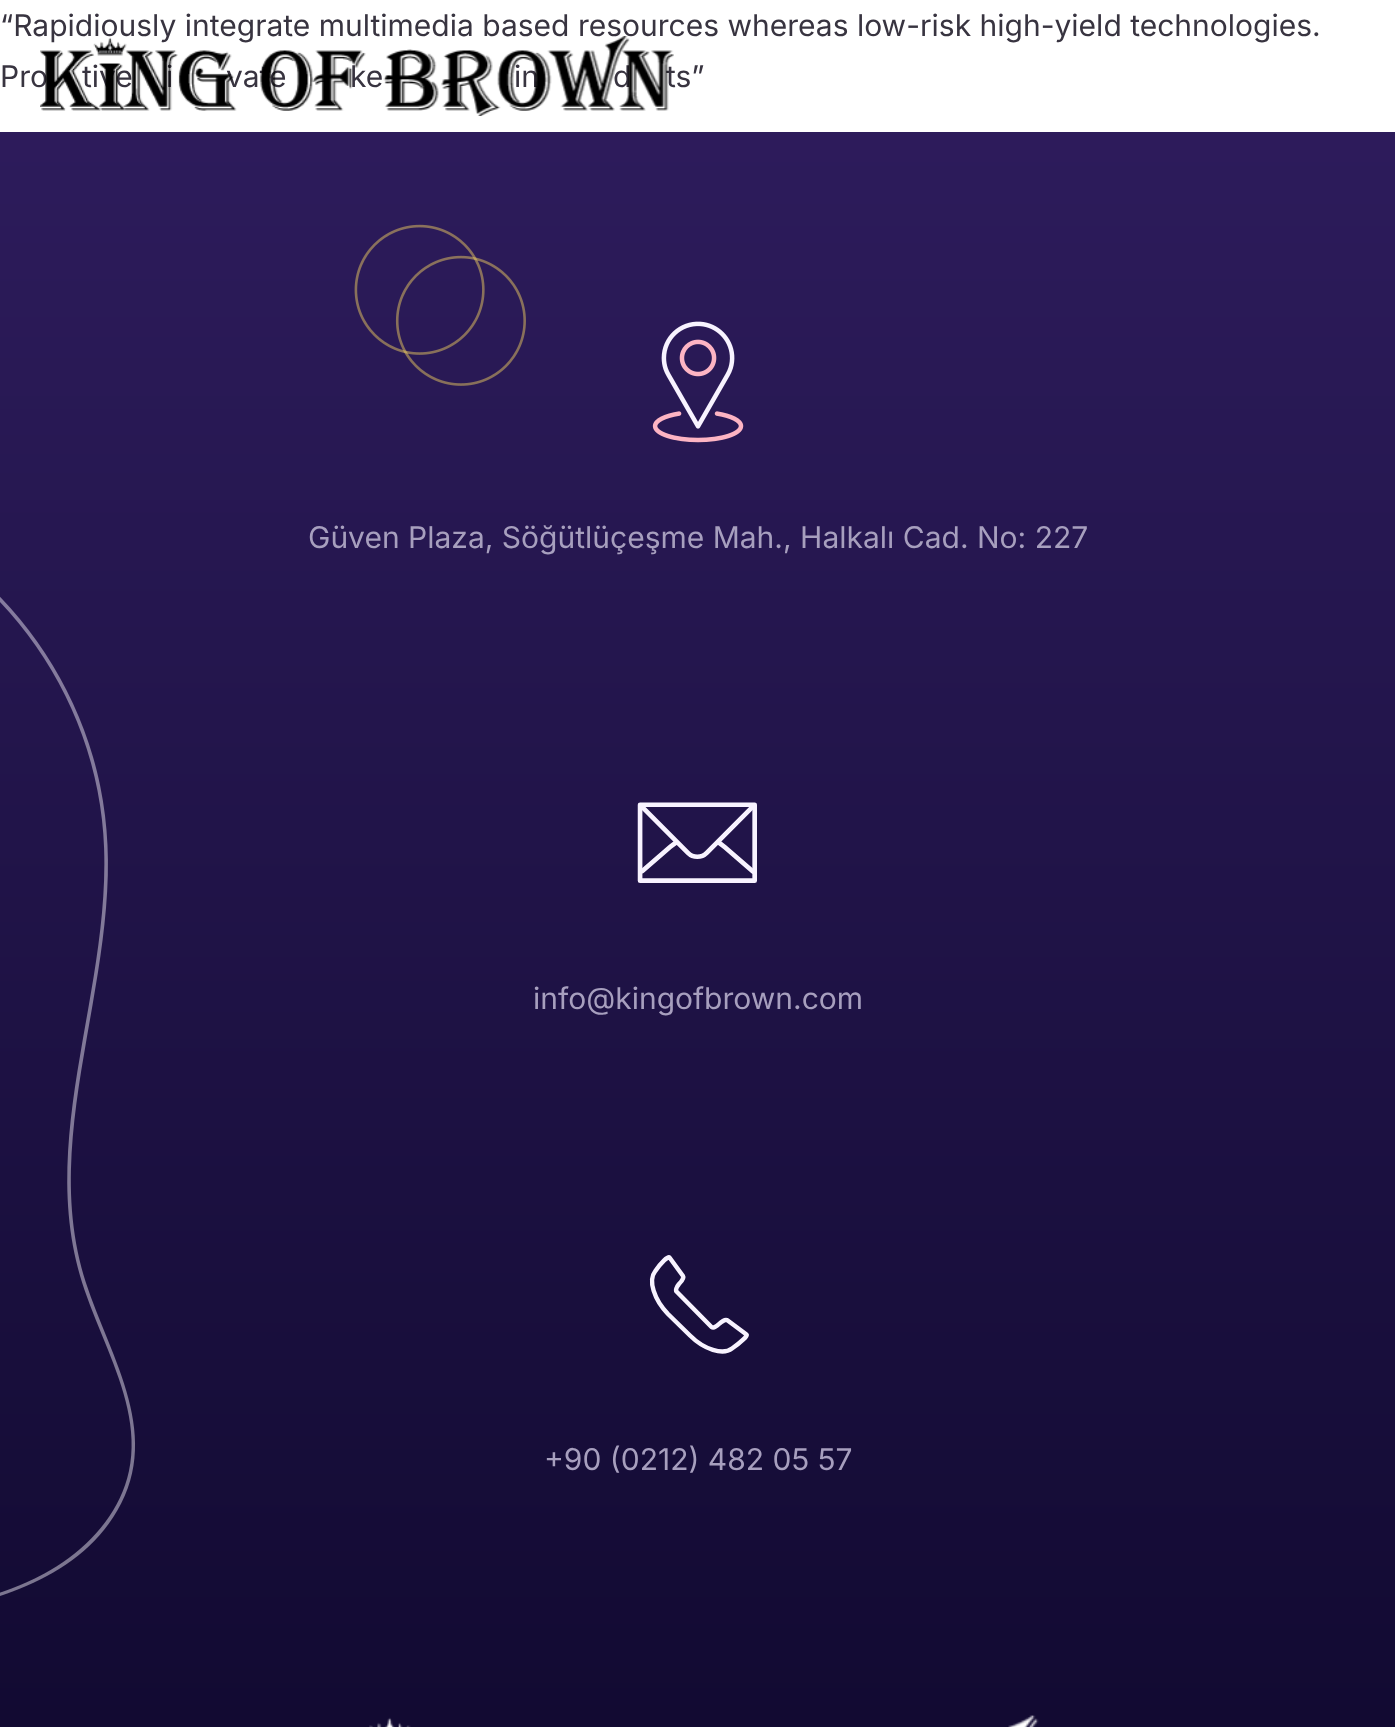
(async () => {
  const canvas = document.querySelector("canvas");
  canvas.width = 1395;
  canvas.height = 1727;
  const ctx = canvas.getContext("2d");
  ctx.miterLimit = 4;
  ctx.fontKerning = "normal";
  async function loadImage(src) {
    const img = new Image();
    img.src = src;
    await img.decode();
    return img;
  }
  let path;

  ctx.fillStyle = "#ffffff";
  ctx.fillRect(0, 0, 1395, 1727);
  ctx.drawImage(await loadImage("img/2.png"), 0, 132, 1395, 1595);
  ctx.drawImage(await loadImage("img/3.png"), 652, 321, 92, 122);
  ctx.drawImage(await loadImage("img/4.png"), 637, 802, 120, 81);
  path = new Path2D("M669.5 1257.5C668 1256 661.5 1262 655 1271.5C648 1280.5 654 1299.5 668 1314L690 1335.5C704 1349.5 723 1355.5 732 1348.5C741.5 1342 748 1335.5 746.5 1334.5L727 1320C725.5 1319.5 722 1321 719 1324C716 1327 713 1328 711.5 1327L677 1292C675 1290.5 676.5 1287 679 1284C682 1281 684 1277.5 683 1276Z");
  ctx.strokeStyle = "#f8f3ff";
  ctx.lineWidth = 4.4;
  ctx.lineCap = "round";
  ctx.lineJoin = "round";
  ctx.stroke(path);
  ctx.drawImage(await loadImage("img/5.png"), 369, 1715, 670, 12);
  ctx.font = "30px Inter";
  ctx.fillStyle = "#383440";
  for (const [text, x, y] of [
    ["“Rapidiously integrate multimedia based resources whereas low-risk high-yield technologies.", 0, 36],
    ["Pro", 0, 87],
    ["tive", 82, 87],
    ["i", 166, 87],
    ["vate", 226, 87],
    ["ke", 350, 87],
    ["in", 514, 87],
    ["d", 613, 87],
    ["ts”", 666, 87],
  ]) {
    ctx.fillText(text, x, y);
  }
  ctx.drawImage(await loadImage("img/1.png"), 40, 36, 634, 80);
  ctx.fillStyle = "#a79fbe";
  for (const [text, x, y] of [
    ["Güven Plaza, Söğütlüçeşme Mah., Halkalı Cad. No: 227", 308, 548],
    ["info@kingofbrown.com", 533, 1009],
    ["+90 (0212) 482 05 57", 544, 1470],
  ]) {
    ctx.fillText(text, x, y);
  }
})();
